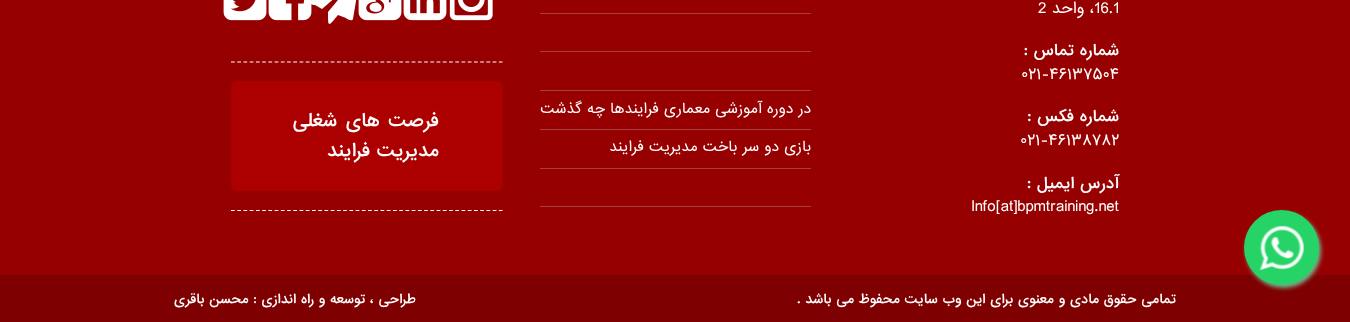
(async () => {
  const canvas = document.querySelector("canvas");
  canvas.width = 1350;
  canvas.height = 322;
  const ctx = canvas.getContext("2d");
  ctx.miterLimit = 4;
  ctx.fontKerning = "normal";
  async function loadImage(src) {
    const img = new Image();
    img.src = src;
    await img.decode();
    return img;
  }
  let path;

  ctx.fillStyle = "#970000";
  ctx.fillRect(0, 0, 1350, 322);
  ctx.fillStyle = "#7e0000";
  ctx.fillRect(0, 275, 1350, 47);
  ctx.fillStyle = "#77b18d";
  ctx.filter = "blur(2px)";
  ctx.beginPath();
  ctx.roundRect(1246, 213, 75, 75, 37.5);
  ctx.fill();
  ctx.filter = "none";
  ctx.fillStyle = "#25d366";
  ctx.beginPath();
  ctx.arc(1281.5, 247.5, 37.5, 0, Math.PI * 2);
  ctx.fill();
  ctx.drawImage(await loadImage("img/1.png"), 1259, 226, 45, 44);
  for (const [x, y, w, h, color] of [
    [540, 13, 271, 1, "#a64040"],
    [540, 51, 271, 1, "#a64040"],
    [540, 90, 271, 1, "#a64040"],
    [540, 129, 271, 1, "#a64040"],
    [540, 168, 271, 1, "#a64040"],
    [540, 206, 271, 1, "#a64040"],
  ]) {
    ctx.fillStyle = color;
    ctx.fillRect(x, y, w, h);
  }
  ctx.drawImage(await loadImage("img/2.png"), 449, 0, 44, 21);
  ctx.drawImage(await loadImage("img/3.png"), 403, 0, 44, 21);
  ctx.drawImage(await loadImage("img/4.png"), 358, 0, 44, 21);
  ctx.fillStyle = "#ffffff";
  path = new Path2D("M359-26H357L310 1C308 4 314 5 315 5L322 9L352-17L328 12C328 28 328 27 338 15L346 18C347 19 352 22 353 19L359-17C359-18 362-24 359-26Z");
  ctx.fill(path);
  ctx.drawImage(await loadImage("img/5.png"), 268, 0, 44, 21);
  ctx.drawImage(await loadImage("img/6.png"), 223, 0, 44, 21);
  path = new Path2D("M231 62H502.5");
  ctx.strokeStyle = "#ffffff";
  ctx.lineWidth = 1.2;
  ctx.setLineDash([3.75, 2.48]);
  ctx.stroke(path);
  path = new Path2D("M231 210.5H502.5");
  ctx.stroke(path);
  ctx.fillStyle = "#ac0000";
  ctx.beginPath();
  ctx.roundRect(231, 81, 272, 110, 6);
  ctx.fill();
  ctx.font = "15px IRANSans";
  ctx.fillStyle = "#ffffff";
  ctx.fillText("16.1", 1094, 13);
  ctx.direction = "rtl";
  ctx.fillText("، واحد", 1094, 13);
  ctx.direction = "ltr";
  ctx.fillText("2", 1038, 13);
  ctx.direction = "rtl";
  ctx.font = "500 15px IRANSans";
  ctx.fillText("شماره تماس :", 1119, 55);
  ctx.direction = "ltr";
  ctx.font = "15px IRANSans";
  ctx.fillText("۰۲۱-۴۶۱۳۷۵۰۴", 1021, 79);
  ctx.direction = "rtl";
  ctx.font = "500 15px IRANSans";
  ctx.fillText("شماره فکس :", 1119, 121);
  ctx.direction = "ltr";
  ctx.font = "15px IRANSans";
  ctx.fillText("۰۲۱-۴۶۱۳۸۷۸۲", 1020, 145);
  ctx.direction = "rtl";
  ctx.font = "500 15px IRANSans";
  ctx.fillText("آدرس ایمیل :", 1119, 188);
  ctx.direction = "ltr";
  ctx.font = "15px IRANSans";
  ctx.fillText("Info[at]bpmtraining.net", 971, 211);
  ctx.save();
  ctx.beginPath();
  ctx.rect(540, 98, 271, 31);
  ctx.clip();
  ctx.direction = "rtl";
  ctx.font = "13.75px IRANSans";
  ctx.fillText("در دوره آموزشی معماری فرایندها چه گذشت؟", 811, 113);
  ctx.restore();
  ctx.direction = "rtl";
  ctx.font = "13.75px IRANSans";
  ctx.fillText("بازی دو سر باخت مدیریت فرایند", 811, 151);
  ctx.wordSpacing = "2px";
  ctx.font = "500 17.5px IRANSans";
  ctx.fillText("فرصت های شغلی", 439, 126);
  ctx.wordSpacing = "0px";
  ctx.fillText("مدیریت فرایند", 439, 156);
  ctx.font = "500 12.5px IRANSans";
  ctx.fillText("تمامی حقوق مادی و معنوی برای این وب سایت محفوظ می باشد .", 1176, 303);
  ctx.fillText("طراحی ، توسعه و راه اندازی : محسن باقری", 416, 303);
})();
